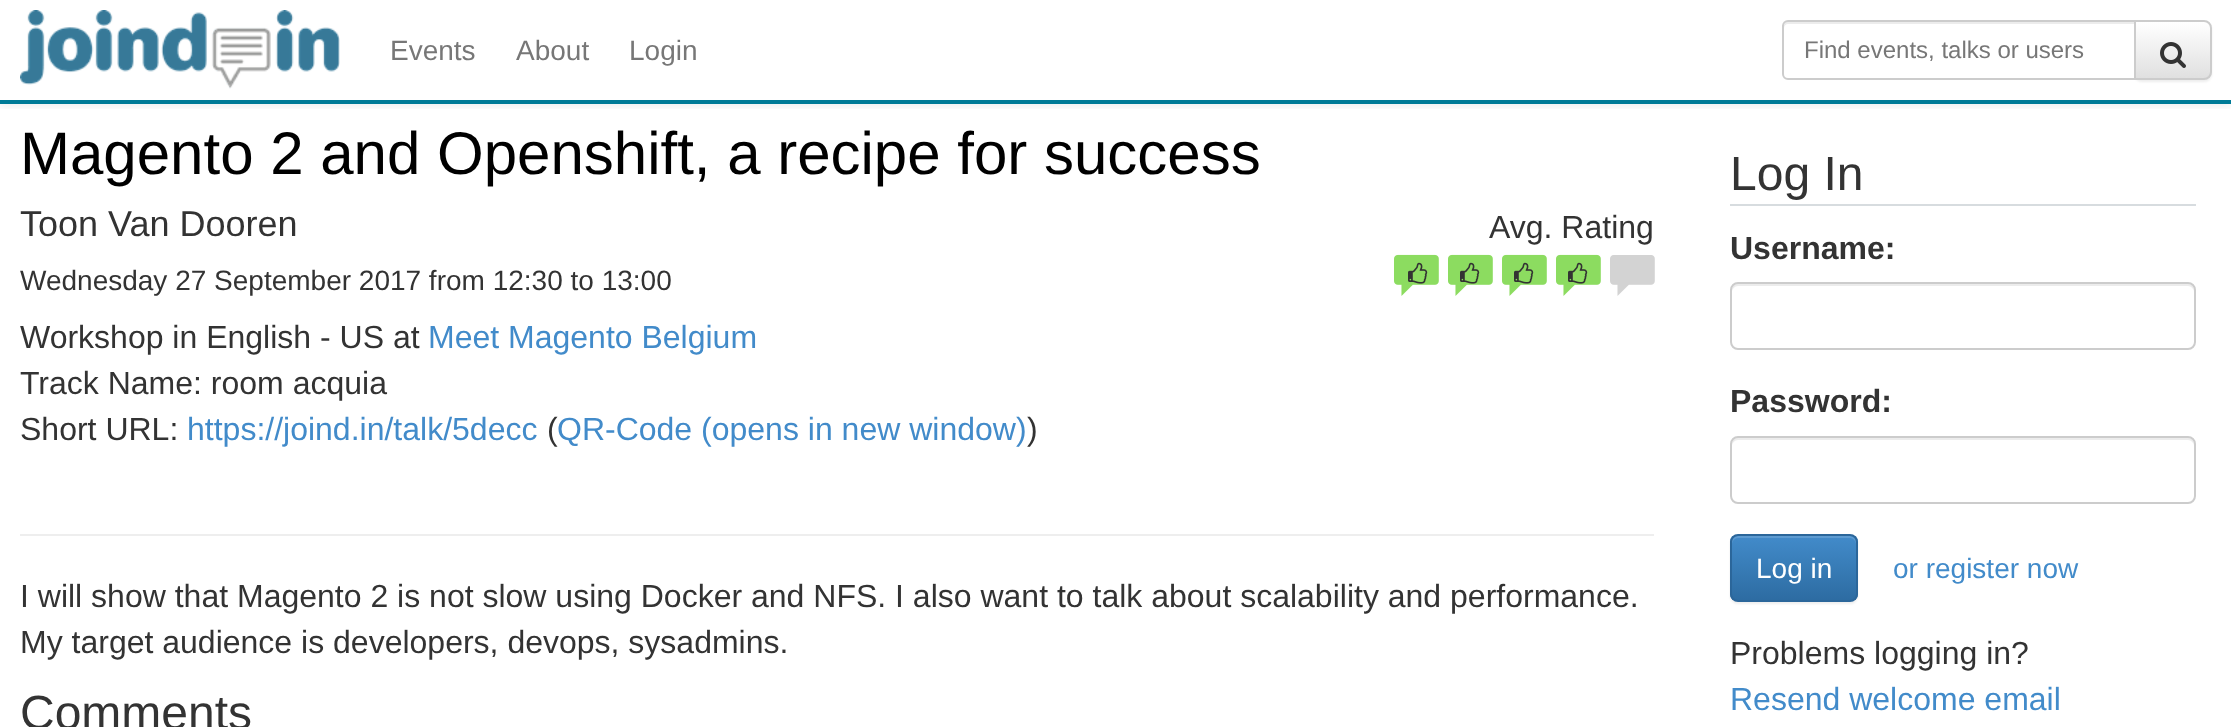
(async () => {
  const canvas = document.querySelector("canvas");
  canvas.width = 2231;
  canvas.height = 727;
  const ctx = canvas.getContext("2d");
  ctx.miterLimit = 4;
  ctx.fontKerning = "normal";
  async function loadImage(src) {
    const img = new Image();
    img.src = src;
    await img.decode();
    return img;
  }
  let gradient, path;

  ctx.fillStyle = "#ffffff";
  ctx.fillRect(0, 0, 2231, 727);
  ctx.save();
  ctx.beginPath();
  ctx.rect(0, 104, 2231, 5);
  ctx.clip();
  ctx.fillStyle = "rgba(0, 0, 0, 0.07)";
  ctx.filter = "blur(5px)";
  ctx.beginPath();
  ctx.rect(0, 2, 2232, 104);
  ctx.fill();
  ctx.filter = "none";
  ctx.restore();
  ctx.fillStyle = "#007b97";
  ctx.fillRect(0, 100, 2231, 4);
  ctx.drawImage(await loadImage("img/1.png"), 20, 10, 320, 79);
  ctx.fillStyle = "rgba(0, 0, 0, 0.07)";
  ctx.filter = "blur(1px)";
  ctx.beginPath();
  ctx.roundRect(2134, 22, 78, 60, 8);
  ctx.fill();
  ctx.filter = "none";
  ctx.save();
  ctx.beginPath();
  ctx.roundRect(2134, 20, 78, 60, [0, 8, 8, 0]);
  ctx.clip();
  gradient = ctx.createLinearGradient(2173, 22, 2173, 78);
  gradient.addColorStop(0, "#ffffff");
  gradient.addColorStop(1, "#e0e0e0");
  ctx.fillStyle = gradient;
  ctx.fillRect(2136, 22, 76, 56);
  ctx.restore();
  ctx.beginPath();
  ctx.roundRect(2135, 21, 76, 58, [0, 7, 7, 0]);
  ctx.strokeStyle = "#cccccc";
  ctx.lineWidth = 2;
  ctx.stroke();
  ctx.fillStyle = "#ffffff";
  ctx.beginPath();
  ctx.roundRect(1782, 20, 354, 60, [6, 0, 0, 6]);
  ctx.fill();
  ctx.fillStyle = "#ececec";
  path = new Path2D("M1788 24H2134V22H1786C1784 23 1784 26 1784 28C1784 26 1786 24 1788 24Z");
  ctx.fill(path);
  ctx.beginPath();
  ctx.roundRect(1783, 21, 352, 58, [5, 0, 0, 5]);
  ctx.stroke();
  ctx.drawImage(await loadImage("img/2.png"), 2160, 42, 26, 26);
  ctx.fillStyle = "#eeeeee";
  ctx.fillRect(20, 534, 1634, 2);
  ctx.drawImage(await loadImage("img/3.png"), 1394, 254, 45, 42);
  ctx.drawImage(await loadImage("img/4.png"), 1408, 262, 20, 22);
  ctx.drawImage(await loadImage("img/3.png"), 1448, 254, 45, 42);
  ctx.drawImage(await loadImage("img/4.png"), 1460, 262, 20, 22);
  ctx.drawImage(await loadImage("img/3.png"), 1502, 254, 45, 42);
  ctx.drawImage(await loadImage("img/4.png"), 1514, 262, 20, 22);
  ctx.drawImage(await loadImage("img/3.png"), 1556, 254, 45, 42);
  ctx.drawImage(await loadImage("img/4.png"), 1568, 262, 20, 22);
  ctx.drawImage(await loadImage("img/5.png"), 1610, 255, 45, 41);
  ctx.fillStyle = "#d7dcdf";
  ctx.fillRect(1730, 204, 466, 2);
  ctx.fillStyle = "#ececec";
  path = new Path2D("M1738 286H2188C2191 286 2194 289 2194 292C2194 288 2193 284 2188 284H1738C1733 284 1732 288 1732 292C1732 289 1735 286 1738 286Z");
  ctx.fill(path);
  ctx.beginPath();
  ctx.roundRect(1731, 283, 464, 66, 7);
  ctx.stroke();
  path = new Path2D("M1738 440H2188C2191 440 2194 443 2194 446C2194 442 2193 438 2188 438H1738C1733 438 1732 442 1732 446C1732 443 1735 440 1738 440Z");
  ctx.fill(path);
  ctx.beginPath();
  ctx.roundRect(1731, 437, 464, 66, 7);
  ctx.stroke();
  ctx.fillStyle = "rgba(0, 0, 0, 0.07)";
  ctx.filter = "blur(1px)";
  ctx.beginPath();
  ctx.roundRect(1730, 536, 128, 68, 8);
  ctx.fill();
  ctx.filter = "none";
  ctx.save();
  ctx.beginPath();
  ctx.roundRect(1730, 534, 128, 68, 8);
  ctx.clip();
  gradient = ctx.createLinearGradient(1794, 536, 1794, 600);
  gradient.addColorStop(0, "#428bca");
  gradient.addColorStop(1, "#2d6ca2");
  ctx.fillStyle = gradient;
  ctx.fillRect(1730, 536, 128, 64);
  ctx.restore();
  ctx.fillStyle = "rgba(255, 255, 255, 0.15)";
  path = new Path2D("M1738 538H1850C1853 538 1856 541 1856 544V542C1856 539 1853 536 1850 536H1738C1735 536 1732 539 1732 542V544C1732 541 1735 538 1738 538Z");
  ctx.fill(path);
  ctx.beginPath();
  ctx.roundRect(1731, 535, 126, 66, 7);
  ctx.strokeStyle = "#2b669a";
  ctx.stroke();
  ctx.font = "28px Liberation Sans";
  ctx.fillStyle = "#777777";
  for (const [text, x, y] of [
    ["Events", 390, 60],
    ["About", 516, 60],
    ["Login", 629, 60],
  ]) {
    ctx.fillText(text, x, y);
  }
  ctx.font = "24px Liberation Sans";
  ctx.fillText("Find events, talks or users", 1804, 58);
  ctx.font = "60px Liberation Sans";
  ctx.fillStyle = "#000000";
  ctx.fillText("Magento 2 and Openshift, a recipe for success", 20, 174);
  ctx.font = "36px Liberation Sans";
  ctx.fillStyle = "#333333";
  ctx.fillText("Toon Van Dooren", 20, 236);
  ctx.font = "28px Liberation Sans";
  ctx.fillText("Wednesday 27 September 2017 from 12:30 to 13:00", 20, 290);
  ctx.font = "32px Liberation Sans";
  ctx.fillText("Workshop in English - US at", 20, 348);
  ctx.fillStyle = "#428bca";
  ctx.fillText("Meet Magento Belgium", 428, 348);
  ctx.fillStyle = "#333333";
  ctx.fillText("Track Name: room acquia", 20, 394);
  ctx.fillText("Short URL:", 20, 440);
  ctx.fillStyle = "#428bca";
  ctx.fillText("https://joind.in/talk/5decc", 187, 440);
  ctx.fillStyle = "#333333";
  ctx.fillText("(", 547, 440);
  ctx.fillStyle = "#428bca";
  ctx.fillText("QR-Code (opens in new window)", 557, 440);
  ctx.fillStyle = "#333333";
  for (const [text, x, y] of [
    [")", 1027, 440],
    ["Avg. Rating", 1489, 238],
    ["I will show that Magento 2 is not slow using Docker and NFS. I also want to talk about scalability and performance.", 20, 607],
    ["My target audience is developers, devops, sysadmins.", 20, 653],
  ]) {
    ctx.fillText(text, x, y);
  }
  ctx.font = "48px Liberation Sans";
  ctx.fillText("Comments", 20, 729);
  ctx.fillText("Log In", 1730, 190);
  ctx.font = "bold 32px Liberation Sans";
  ctx.fillText("Username:", 1730, 259);
  ctx.fillText("Password:", 1730, 412);
  ctx.font = "28px Liberation Sans";
  ctx.fillStyle = "#ffffff";
  ctx.fillText("Log in", 1756, 578);
  ctx.fillStyle = "#428bca";
  ctx.fillText("or register now", 1893, 578);
  ctx.font = "32px Liberation Sans";
  ctx.fillStyle = "#333333";
  ctx.fillText("Problems logging in?", 1730, 664);
  ctx.fillStyle = "#428bca";
  ctx.fillText("Resend welcome email", 1730, 710);
})();
